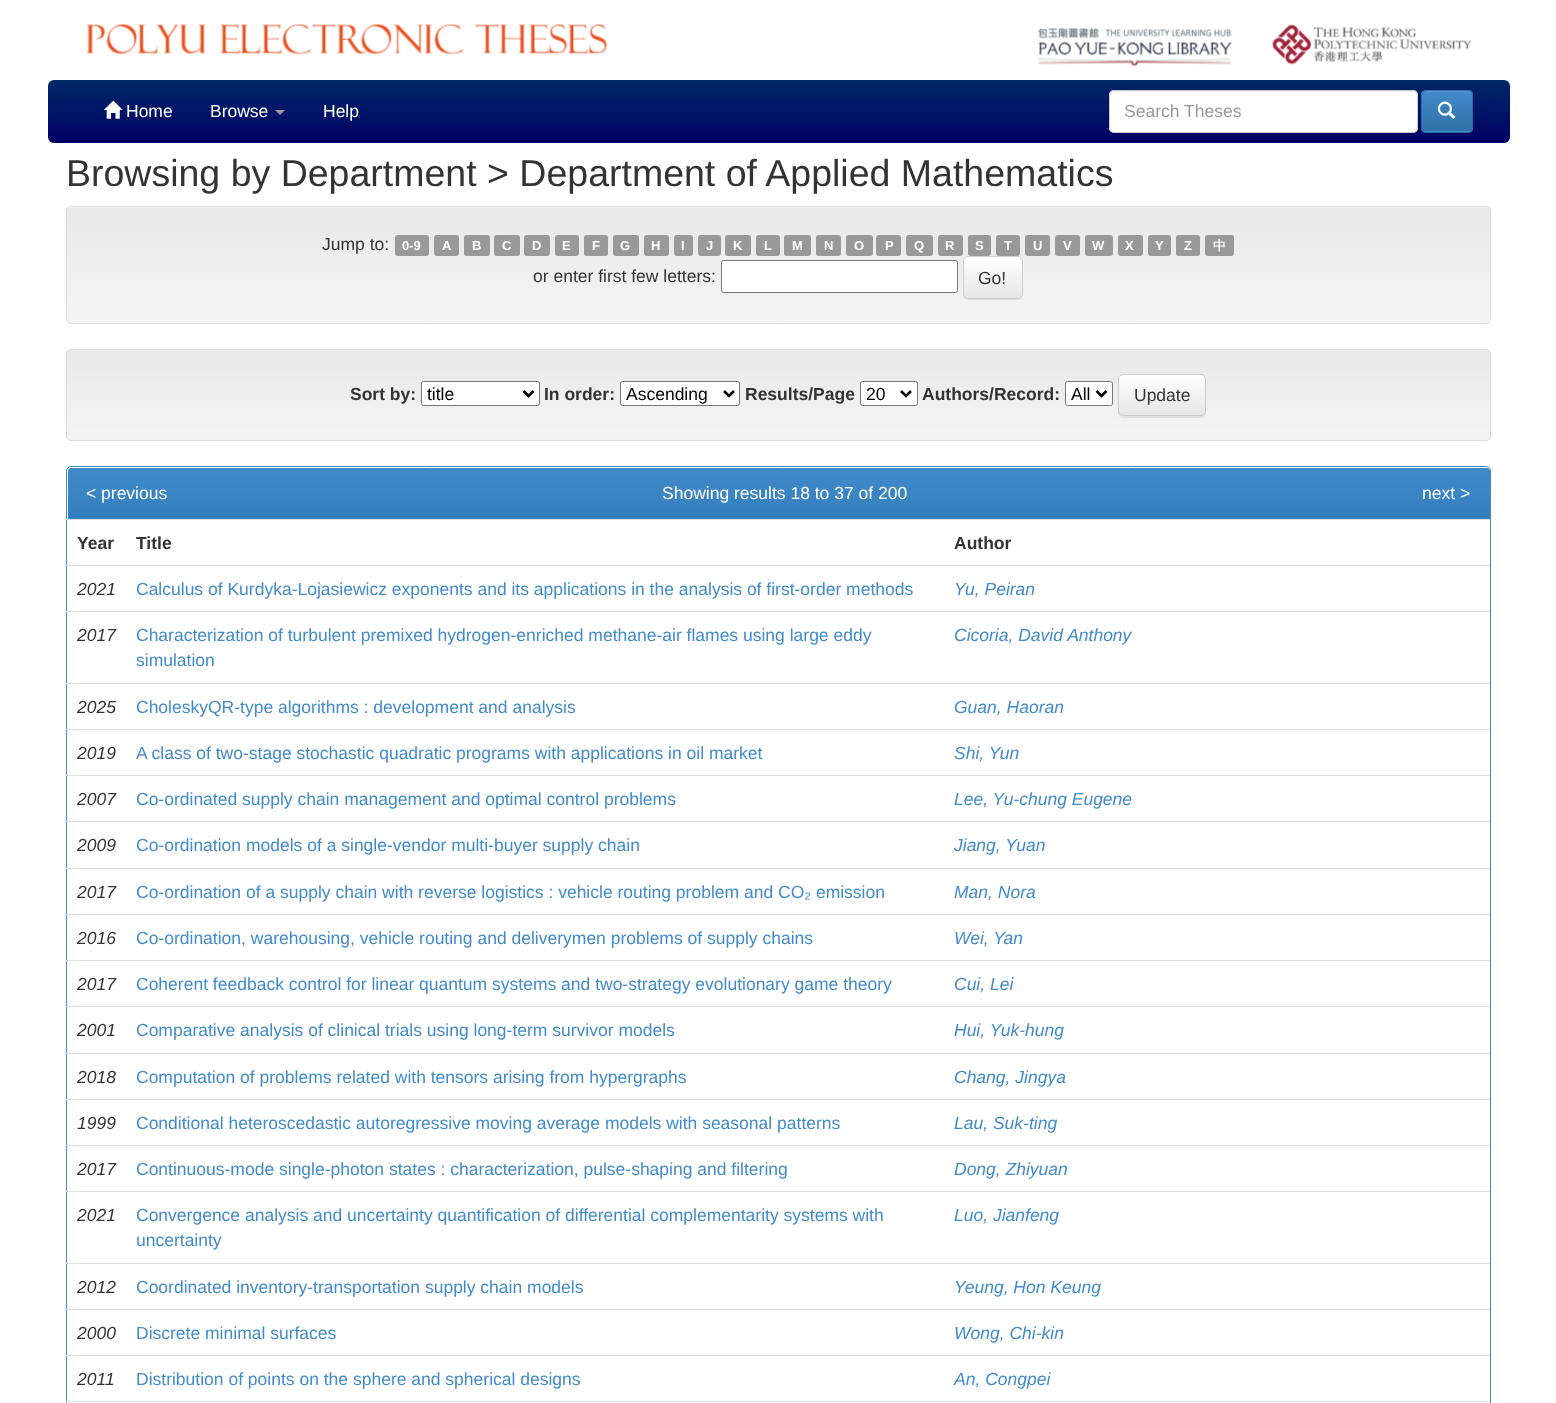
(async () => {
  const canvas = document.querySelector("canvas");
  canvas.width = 1556;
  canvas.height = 1403;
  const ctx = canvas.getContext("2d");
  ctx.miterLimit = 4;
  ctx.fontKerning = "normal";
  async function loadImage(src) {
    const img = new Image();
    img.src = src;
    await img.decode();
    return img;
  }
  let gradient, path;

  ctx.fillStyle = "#ffffff";
  ctx.fillRect(0, 0, 1556, 1403);
  ctx.drawImage(await loadImage("img/1.png"), 86, 23, 522, 32);
  ctx.drawImage(await loadImage("img/2.png"), 1037, 27, 195, 40);
  ctx.drawImage(await loadImage("img/3.png"), 1271, 24, 201, 41);
  gradient = ctx.createLinearGradient(48, 80, 48, 143);
  gradient.addColorStop(0, "#002866");
  gradient.addColorStop(1, "#000066");
  ctx.fillStyle = gradient;
  ctx.beginPath();
  ctx.roundRect(48, 80, 1462, 63, 6);
  ctx.fill();
  ctx.drawImage(await loadImage("img/4.png"), 103, 100, 20, 19);
  ctx.fillStyle = "#999999";
  path = new Path2D("M275 110H285L280 115Z");
  ctx.fill(path);
  ctx.fillStyle = "#ffffff";
  ctx.beginPath();
  ctx.roundRect(1109, 90, 309, 43, 5);
  ctx.fill();
  ctx.fillStyle = "#ececec";
  path = new Path2D("M1114 92H1412C1415 92 1416 94 1416 96C1416 93 1415 91 1412 91H1114L1111 92C1110 93 1110 95 1110 96C1110 94 1112 92 1114 92Z");
  ctx.fill(path);
  ctx.beginPath();
  ctx.roundRect(1109.5, 90.5, 308, 42, 4.5);
  ctx.strokeStyle = "#cccccc";
  ctx.stroke();
  ctx.fillStyle = "#428bca";
  ctx.beginPath();
  ctx.roundRect(1421, 90, 52, 43, 5);
  ctx.fill();
  ctx.save();
  ctx.beginPath();
  ctx.roundRect(1421, 90, 52, 43, 5);
  ctx.clip();
  gradient = ctx.createLinearGradient(1447, 91, 1447, 131);
  gradient.addColorStop(0, "#428bca");
  gradient.addColorStop(1, "#3071a9");
  ctx.fillStyle = gradient;
  ctx.fillRect(1421, 91, 52, 40);
  ctx.restore();
  ctx.fillStyle = "#5e9cd2";
  path = new Path2D("M1426 92H1468C1470 92 1471 94 1471 96V95C1471 93 1469 91 1467 91H1427C1426 91 1424 92 1424 93Z");
  ctx.fill(path);
  ctx.beginPath();
  ctx.roundRect(1421.5, 90.5, 51, 42, 4.5);
  ctx.strokeStyle = "#2d6ca2";
  ctx.stroke();
  ctx.drawImage(await loadImage("img/5.png"), 1437, 101, 19, 18);
  ctx.fillStyle = "#f5f5f5";
  ctx.beginPath();
  ctx.roundRect(66, 206, 1425, 118, 5);
  ctx.fill();
  ctx.save();
  ctx.beginPath();
  ctx.roundRect(66, 206, 1425, 118, 5);
  ctx.clip();
  gradient = ctx.createLinearGradient(779, 207, 779, 323);
  gradient.addColorStop(0, "#e8e8e8");
  gradient.addColorStop(1, "#f5f5f5");
  ctx.fillStyle = gradient;
  ctx.fillRect(66, 208, 1425, 115);
  ctx.restore();
  ctx.beginPath();
  ctx.roundRect(66.5, 206.5, 1424, 117, 4.5);
  ctx.strokeStyle = "#dcdcdc";
  ctx.stroke();
  ctx.fillStyle = "#999999";
  ctx.beginPath();
  ctx.roundRect(395, 235, 34, 21, 3);
  ctx.fill();
  ctx.beginPath();
  ctx.roundRect(434, 235, 25, 21, 3);
  ctx.fill();
  ctx.beginPath();
  ctx.roundRect(464, 235, 26, 21, 3);
  ctx.fill();
  ctx.beginPath();
  ctx.roundRect(494, 235, 26, 21, 3);
  ctx.fill();
  ctx.beginPath();
  ctx.roundRect(524, 235, 26, 21, 3);
  ctx.fill();
  ctx.beginPath();
  ctx.roundRect(555, 235, 24, 21, 3);
  ctx.fill();
  ctx.beginPath();
  ctx.roundRect(584, 235, 24, 21, 3);
  ctx.fill();
  ctx.beginPath();
  ctx.roundRect(613, 235, 26, 21, 3);
  ctx.fill();
  ctx.beginPath();
  ctx.roundRect(644, 235, 25, 21, 3);
  ctx.fill();
  ctx.beginPath();
  ctx.roundRect(674, 235, 19, 21, 3);
  ctx.fill();
  ctx.beginPath();
  ctx.roundRect(698, 235, 23, 21, 3);
  ctx.fill();
  ctx.beginPath();
  ctx.roundRect(725, 235, 26, 21, 3);
  ctx.fill();
  ctx.beginPath();
  ctx.roundRect(756, 235, 24, 21, 3);
  ctx.fill();
  ctx.beginPath();
  ctx.roundRect(784, 235, 27, 21, 3);
  ctx.fill();
  ctx.beginPath();
  ctx.roundRect(816, 235, 25, 21, 3);
  ctx.fill();
  ctx.beginPath();
  ctx.roundRect(846, 235, 27, 21, 3);
  ctx.fill();
  ctx.beginPath();
  ctx.roundRect(876, 235, 25, 21, 3);
  ctx.fill();
  ctx.beginPath();
  ctx.roundRect(906, 235, 27, 21, 3);
  ctx.fill();
  ctx.beginPath();
  ctx.roundRect(938, 235, 25, 21, 3);
  ctx.fill();
  ctx.beginPath();
  ctx.roundRect(968, 235, 23, 21, 3);
  ctx.fill();
  ctx.beginPath();
  ctx.roundRect(996, 235, 24, 21, 3);
  ctx.fill();
  ctx.beginPath();
  ctx.roundRect(1025, 235, 25, 21, 3);
  ctx.fill();
  ctx.beginPath();
  ctx.roundRect(1055, 235, 25, 21, 3);
  ctx.fill();
  ctx.beginPath();
  ctx.roundRect(1085, 235, 28, 21, 3);
  ctx.fill();
  ctx.beginPath();
  ctx.roundRect(1118, 235, 25, 21, 3);
  ctx.fill();
  ctx.beginPath();
  ctx.roundRect(1148, 235, 23, 21, 3);
  ctx.fill();
  ctx.beginPath();
  ctx.roundRect(1176, 235, 24, 21, 3);
  ctx.fill();
  ctx.beginPath();
  ctx.roundRect(1205, 235, 29, 21, 3);
  ctx.fill();
  ctx.fillStyle = "#ffffff";
  ctx.beginPath();
  ctx.roundRect(721.5, 260.5, 236, 32, 2);
  ctx.fill();
  ctx.strokeStyle = "#767676";
  ctx.stroke();
  ctx.fillStyle = "rgba(0, 0, 0, 0.07)";
  ctx.filter = "blur(0.5px)";
  ctx.beginPath();
  ctx.roundRect(963, 258, 60, 42, 5);
  ctx.fill();
  ctx.filter = "none";
  ctx.fillStyle = "#ffffff";
  ctx.beginPath();
  ctx.roundRect(963, 256, 60, 43, 5);
  ctx.fill();
  ctx.save();
  ctx.beginPath();
  ctx.roundRect(963, 256, 60, 43, 5);
  ctx.clip();
  gradient = ctx.createLinearGradient(993, 258, 993, 298);
  gradient.addColorStop(0, "#ffffff");
  gradient.addColorStop(1, "#e6e6e6");
  ctx.fillStyle = gradient;
  ctx.fillRect(963, 258, 60, 40);
  ctx.restore();
  ctx.beginPath();
  ctx.roundRect(963.5, 256.5, 59, 42, 4.5);
  ctx.strokeStyle = "#cccccc";
  ctx.stroke();
  ctx.save();
  ctx.beginPath();
  ctx.roundRect(66, 349, 1425, 92, 5);
  ctx.clip();
  gradient = ctx.createLinearGradient(779, 350, 779, 440);
  gradient.addColorStop(0, "#e8e8e8");
  gradient.addColorStop(1, "#f5f5f5");
  ctx.fillStyle = gradient;
  ctx.fillRect(66, 350, 1425, 90);
  ctx.restore();
  ctx.beginPath();
  ctx.roundRect(66.5, 349.5, 1424, 91, 4.5);
  ctx.strokeStyle = "#dcdcdc";
  ctx.stroke();
  ctx.beginPath();
  ctx.roundRect(421.5, 381.5, 118, 24, 2);
  ctx.fill();
  ctx.strokeStyle = "#767676";
  ctx.stroke();
  path = new Path2D("M523.5 391L528.5 396L533.5 391");
  ctx.strokeStyle = "#000000";
  ctx.lineWidth = 2.5;
  ctx.stroke(path);
  ctx.beginPath();
  ctx.roundRect(620.5, 381.5, 119, 24, 2);
  ctx.fill();
  ctx.strokeStyle = "#767676";
  ctx.lineWidth = 1;
  ctx.stroke();
  path = new Path2D("M724 391L729 396L734 391");
  ctx.strokeStyle = "#000000";
  ctx.lineWidth = 2.5;
  ctx.stroke(path);
  ctx.beginPath();
  ctx.roundRect(860.5, 381.5, 57, 24, 2);
  ctx.fill();
  ctx.strokeStyle = "#767676";
  ctx.lineWidth = 1;
  ctx.stroke();
  path = new Path2D("M901 391L906 396L911 391");
  ctx.strokeStyle = "#000000";
  ctx.lineWidth = 2.5;
  ctx.stroke(path);
  ctx.beginPath();
  ctx.roundRect(1065.5, 381.5, 47, 24, 2);
  ctx.fill();
  ctx.strokeStyle = "#767676";
  ctx.lineWidth = 1;
  ctx.stroke();
  path = new Path2D("M1096.5 391L1101.5 396L1106.5 391");
  ctx.strokeStyle = "#000000";
  ctx.lineWidth = 2.5;
  ctx.stroke(path);
  ctx.fillStyle = "rgba(0, 0, 0, 0.07)";
  ctx.filter = "blur(0.5px)";
  ctx.beginPath();
  ctx.roundRect(1118, 375, 88, 43, 5);
  ctx.fill();
  ctx.filter = "none";
  ctx.save();
  ctx.beginPath();
  ctx.roundRect(1118, 374, 88, 42, 5);
  ctx.clip();
  gradient = ctx.createLinearGradient(1162, 375, 1162, 415);
  gradient.addColorStop(0, "#ffffff");
  gradient.addColorStop(1, "#e6e6e6");
  ctx.fillStyle = gradient;
  ctx.fillRect(1118, 375, 88, 40);
  ctx.restore();
  ctx.beginPath();
  ctx.roundRect(1118.5, 374.5, 87, 41, 4.5);
  ctx.strokeStyle = "#cccccc";
  ctx.lineWidth = 1;
  ctx.stroke();
  ctx.beginPath();
  ctx.roundRect(66.5, 466.5, 1424, 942, 4.5);
  ctx.strokeStyle = "#428bca";
  ctx.stroke();
  ctx.fillStyle = "#428bca";
  ctx.beginPath();
  ctx.roundRect(68, 468, 1422, 51, [4, 4, 0, 0]);
  ctx.fill();
  gradient = ctx.createLinearGradient(779, 467, 779, 518);
  gradient.addColorStop(0, "#428bca");
  gradient.addColorStop(1, "#357ebd");
  ctx.fillStyle = gradient;
  ctx.beginPath();
  ctx.roundRect(68, 468, 1422, 50, [4, 4, 0, 0]);
  ctx.fill();
  for (const [x, y, w, h, color] of [
    [66, 519, 1424, 1, "#dddddd"],
    [66, 565, 1424, 1, "#dddddd"],
    [66, 611, 1424, 1, "#dddddd"],
    [66, 683, 1424, 1, "#dddddd"],
    [66, 729, 1424, 1, "#dddddd"],
    [66, 775, 1424, 1, "#dddddd"],
    [66, 821, 1424, 1, "#dddddd"],
    [66, 868, 1424, 1, "#dddddd"],
    [66, 914, 1424, 1, "#dddddd"],
    [66, 960, 1424, 1, "#dddddd"],
    [66, 1006, 1424, 1, "#dddddd"],
    [66, 1053, 1424, 1, "#dddddd"],
    [66, 1099, 1424, 1, "#dddddd"],
    [66, 1145, 1424, 1, "#dddddd"],
    [66, 1191, 1424, 1, "#dddddd"],
    [66, 1263, 1424, 1, "#dddddd"],
    [66, 1309, 1424, 1, "#dddddd"],
    [66, 1355, 1424, 1, "#dddddd"],
    [66, 1401, 1424, 1, "#dddddd"],
  ]) {
    ctx.fillStyle = color;
    ctx.fillRect(x, y, w, h);
  }
  ctx.font = "17.5px Liberation Sans";
  ctx.fillStyle = "#ffffff";
  for (const [text, x, y] of [
    ["Home", 126, 117],
    ["Browse", 210, 117],
    ["Help", 323, 117],
  ]) {
    ctx.fillText(text, x, y);
  }
  ctx.fillStyle = "#999999";
  ctx.fillText("Search Theses", 1124, 117);
  ctx.font = "37.5px Liberation Sans";
  ctx.fillStyle = "#333333";
  ctx.fillText("Browsing by Department > Department of Applied Mathematics", 66, 186);
  ctx.font = "17.5px Liberation Sans";
  ctx.fillText("Jump to:", 322, 250);
  ctx.font = "bold 13px Liberation Sans";
  ctx.fillStyle = "#ffffff";
  for (const [text, x, y] of [
    ["0-9", 402, 250],
    ["A", 442, 250],
    ["B", 472, 250],
    ["C", 502, 250],
    ["D", 532, 250],
    ["E", 562, 250],
    ["F", 592, 250],
    ["G", 620, 250],
    ["H", 651, 250],
    ["I", 681, 250],
    ["J", 706, 250],
    ["K", 733, 250],
    ["L", 764, 250],
    ["M", 792, 250],
    ["N", 824, 250],
    ["O", 854, 250],
    ["P", 885, 250],
    ["Q", 914, 250],
    ["R", 945, 250],
    ["S", 975, 250],
    ["T", 1004, 250],
    ["U", 1033, 250],
    ["V", 1063, 250],
    ["W", 1092, 250],
    ["X", 1125, 250],
    ["Y", 1155, 250],
    ["Z", 1184, 250],
  ]) {
    ctx.fillText(text, x, y);
  }
  ctx.font = "bold 13px WenQuanYi Zen Hei";
  ctx.fillText("中", 1213, 250);
  ctx.font = "17.5px Liberation Sans";
  ctx.fillStyle = "#333333";
  ctx.fillText("or enter first few letters:", 533, 282);
  ctx.fillText("Go!", 978, 284);
  ctx.font = "bold 17.5px Liberation Sans";
  ctx.fillText("Sort by:", 350, 400);
  ctx.font = "17.5px Liberation Sans";
  ctx.fillStyle = "#000000";
  ctx.fillText("title", 427, 400);
  ctx.font = "bold 17.5px Liberation Sans";
  ctx.fillStyle = "#333333";
  ctx.fillText("In order:", 544, 400);
  ctx.font = "17.5px Liberation Sans";
  ctx.fillStyle = "#000000";
  ctx.fillText("Ascending", 626, 400);
  ctx.font = "bold 17.5px Liberation Sans";
  ctx.fillStyle = "#333333";
  ctx.fillText("Results/Page", 745, 400);
  ctx.font = "17.5px Liberation Sans";
  ctx.fillStyle = "#000000";
  ctx.fillText("20", 866, 400);
  ctx.font = "bold 17.5px Liberation Sans";
  ctx.fillStyle = "#333333";
  ctx.fillText("Authors/Record:", 922, 400);
  ctx.font = "17.5px Liberation Sans";
  ctx.fillStyle = "#000000";
  ctx.fillText("All", 1071, 400);
  ctx.fillStyle = "#333333";
  ctx.fillText("Update", 1134, 401);
  ctx.fillStyle = "#ffffff";
  for (const [text, x, y] of [
    ["< previous", 86, 499],
    ["Showing results 18 to 37 of 200", 662, 499],
    ["next >", 1422, 499],
  ]) {
    ctx.fillText(text, x, y);
  }
  ctx.font = "bold 17.5px Liberation Sans";
  ctx.fillStyle = "#333333";
  for (const [text, x, y] of [
    ["Year", 77, 549],
    ["Title", 136, 549],
    ["Author", 954, 549],
  ]) {
    ctx.fillText(text, x, y);
  }
  ctx.font = "italic 17.5px Liberation Sans";
  ctx.fillText("2021", 77, 595);
  ctx.font = "17.5px Liberation Sans";
  ctx.fillStyle = "#428bca";
  ctx.fillText("Calculus of Kurdyka-Lojasiewicz exponents and its applications in the analysis of first-order methods", 136, 595);
  ctx.font = "italic 17.5px Liberation Sans";
  ctx.fillText("Yu, Peiran", 954, 595);
  ctx.fillStyle = "#333333";
  ctx.fillText("2017", 77, 641);
  ctx.font = "17.5px Liberation Sans";
  ctx.fillStyle = "#428bca";
  ctx.fillText("Characterization of turbulent premixed hydrogen-enriched methane-air flames using large eddy", 136, 641);
  ctx.fillText("simulation", 136, 666);
  ctx.font = "italic 17.5px Liberation Sans";
  ctx.fillText("Cicoria, David Anthony", 954, 641);
  ctx.fillStyle = "#333333";
  ctx.fillText("2025", 77, 713);
  ctx.font = "17.5px Liberation Sans";
  ctx.fillStyle = "#428bca";
  ctx.fillText("CholeskyQR-type algorithms : development and analysis", 136, 713);
  ctx.font = "italic 17.5px Liberation Sans";
  ctx.fillText("Guan, Haoran", 954, 713);
  ctx.fillStyle = "#333333";
  ctx.fillText("2019", 77, 759);
  ctx.font = "17.5px Liberation Sans";
  ctx.fillStyle = "#428bca";
  ctx.fillText("A class of two-stage stochastic quadratic programs with applications in oil market", 136, 759);
  ctx.font = "italic 17.5px Liberation Sans";
  ctx.fillText("Shi, Yun", 954, 759);
  ctx.fillStyle = "#333333";
  ctx.fillText("2007", 77, 805);
  ctx.font = "17.5px Liberation Sans";
  ctx.fillStyle = "#428bca";
  ctx.fillText("Co-ordinated supply chain management and optimal control problems", 136, 805);
  ctx.font = "italic 17.5px Liberation Sans";
  ctx.fillText("Lee, Yu-chung Eugene", 954, 805);
  ctx.fillStyle = "#333333";
  ctx.fillText("2009", 77, 851);
  ctx.font = "17.5px Liberation Sans";
  ctx.fillStyle = "#428bca";
  ctx.fillText("Co-ordination models of a single-vendor multi-buyer supply chain", 136, 851);
  ctx.font = "italic 17.5px Liberation Sans";
  ctx.fillText("Jiang, Yuan", 954, 851);
  ctx.fillStyle = "#333333";
  ctx.fillText("2017", 77, 898);
  ctx.font = "17.5px Liberation Sans";
  ctx.fillStyle = "#428bca";
  ctx.fillText("Co-ordination of a supply chain with reverse logistics : vehicle routing problem and CO₂ emission", 136, 898);
  ctx.font = "italic 17.5px Liberation Sans";
  ctx.fillText("Man, Nora", 954, 898);
  ctx.fillStyle = "#333333";
  ctx.fillText("2016", 77, 944);
  ctx.font = "17.5px Liberation Sans";
  ctx.fillStyle = "#428bca";
  ctx.fillText("Co-ordination, warehousing, vehicle routing and deliverymen problems of supply chains", 136, 944);
  ctx.font = "italic 17.5px Liberation Sans";
  ctx.fillText("Wei, Yan", 954, 944);
  ctx.fillStyle = "#333333";
  ctx.fillText("2017", 77, 990);
  ctx.font = "17.5px Liberation Sans";
  ctx.fillStyle = "#428bca";
  ctx.fillText("Coherent feedback control for linear quantum systems and two-strategy evolutionary game theory", 136, 990);
  ctx.font = "italic 17.5px Liberation Sans";
  ctx.fillText("Cui, Lei", 954, 990);
  ctx.fillStyle = "#333333";
  ctx.fillText("2001", 77, 1036);
  ctx.font = "17.5px Liberation Sans";
  ctx.fillStyle = "#428bca";
  ctx.fillText("Comparative analysis of clinical trials using long-term survivor models", 136, 1036);
  ctx.font = "italic 17.5px Liberation Sans";
  ctx.fillText("Hui, Yuk-hung", 954, 1036);
  ctx.fillStyle = "#333333";
  ctx.fillText("2018", 77, 1083);
  ctx.font = "17.5px Liberation Sans";
  ctx.fillStyle = "#428bca";
  ctx.fillText("Computation of problems related with tensors arising from hypergraphs", 136, 1083);
  ctx.font = "italic 17.5px Liberation Sans";
  ctx.fillText("Chang, Jingya", 954, 1083);
  ctx.fillStyle = "#333333";
  ctx.fillText("1999", 77, 1129);
  ctx.font = "17.5px Liberation Sans";
  ctx.fillStyle = "#428bca";
  ctx.fillText("Conditional heteroscedastic autoregressive moving average models with seasonal patterns", 136, 1129);
  ctx.font = "italic 17.5px Liberation Sans";
  ctx.fillText("Lau, Suk-ting", 954, 1129);
  ctx.fillStyle = "#333333";
  ctx.fillText("2017", 77, 1175);
  ctx.font = "17.5px Liberation Sans";
  ctx.fillStyle = "#428bca";
  ctx.fillText("Continuous-mode single-photon states : characterization, pulse-shaping and filtering", 136, 1175);
  ctx.font = "italic 17.5px Liberation Sans";
  ctx.fillText("Dong, Zhiyuan", 954, 1175);
  ctx.fillStyle = "#333333";
  ctx.fillText("2021", 77, 1221);
  ctx.font = "17.5px Liberation Sans";
  ctx.fillStyle = "#428bca";
  ctx.fillText("Convergence analysis and uncertainty quantification of differential complementarity systems with", 136, 1221);
  ctx.fillText("uncertainty", 136, 1246);
  ctx.font = "italic 17.5px Liberation Sans";
  ctx.fillText("Luo, Jianfeng", 954, 1221);
  ctx.fillStyle = "#333333";
  ctx.fillText("2012", 77, 1293);
  ctx.font = "17.5px Liberation Sans";
  ctx.fillStyle = "#428bca";
  ctx.fillText("Coordinated inventory-transportation supply chain models", 136, 1293);
  ctx.font = "italic 17.5px Liberation Sans";
  ctx.fillText("Yeung, Hon Keung", 954, 1293);
  ctx.fillStyle = "#333333";
  ctx.fillText("2000", 77, 1339);
  ctx.font = "17.5px Liberation Sans";
  ctx.fillStyle = "#428bca";
  ctx.fillText("Discrete minimal surfaces", 136, 1339);
  ctx.font = "italic 17.5px Liberation Sans";
  ctx.fillText("Wong, Chi-kin", 954, 1339);
  ctx.fillStyle = "#333333";
  ctx.fillText("2011", 77, 1385);
  ctx.font = "17.5px Liberation Sans";
  ctx.fillStyle = "#428bca";
  ctx.fillText("Distribution of points on the sphere and spherical designs", 136, 1385);
  ctx.font = "italic 17.5px Liberation Sans";
  ctx.fillText("An, Congpei", 954, 1385);
})();
